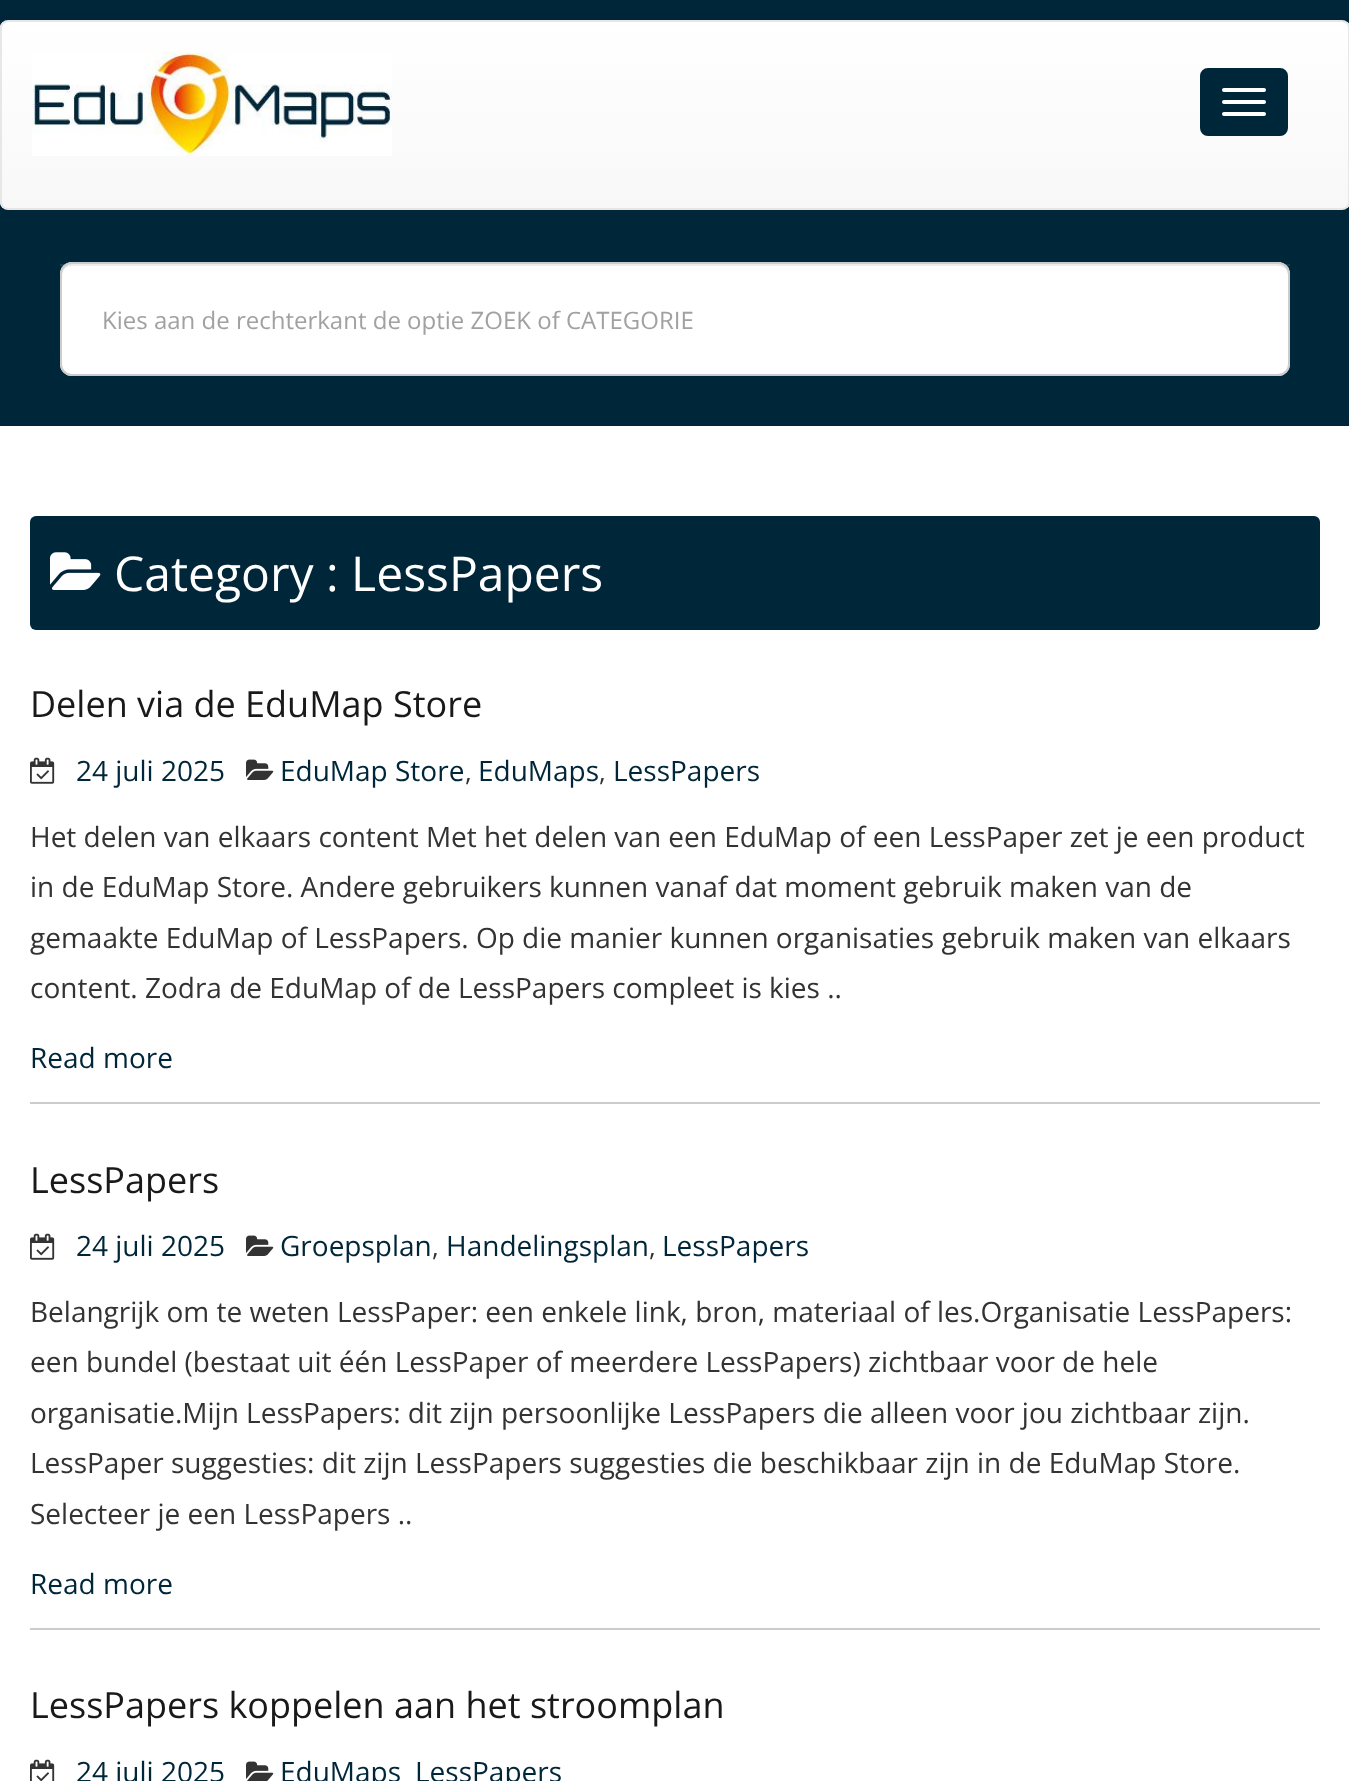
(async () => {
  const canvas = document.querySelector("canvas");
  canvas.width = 1349;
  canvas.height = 1781;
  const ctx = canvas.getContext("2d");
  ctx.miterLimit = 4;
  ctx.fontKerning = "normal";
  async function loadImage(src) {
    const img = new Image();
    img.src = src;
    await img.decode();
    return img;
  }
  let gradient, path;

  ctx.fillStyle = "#ffffff";
  ctx.fillRect(0, 0, 1349, 1781);
  ctx.fillStyle = "#002639";
  ctx.fillRect(0, 0, 1349, 210);
  ctx.fillStyle = "rgba(0, 0, 0, 0.07)";
  ctx.filter = "blur(5px)";
  ctx.beginPath();
  ctx.roundRect(0, 22, 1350, 190, 8);
  ctx.fill();
  ctx.filter = "none";
  ctx.save();
  ctx.beginPath();
  ctx.roundRect(0, 20, 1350, 190, 8);
  ctx.clip();
  gradient = ctx.createLinearGradient(675, 22, 675, 208);
  gradient.addColorStop(0, "#ffffff");
  gradient.addColorStop(1, "#f8f8f8");
  ctx.fillStyle = gradient;
  ctx.fillRect(0, 22, 1349, 186);
  ctx.restore();
  ctx.beginPath();
  ctx.roundRect(1, 21, 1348, 188, 7);
  ctx.strokeStyle = "#e7e7e7";
  ctx.lineWidth = 2;
  ctx.stroke();
  ctx.drawImage(await loadImage("img/1.png"), 32, 52, 360, 104);
  ctx.fillStyle = "#002639";
  ctx.beginPath();
  ctx.roundRect(1201, 69, 86, 66, 7);
  ctx.fill();
  ctx.strokeStyle = "#002639";
  ctx.stroke();
  ctx.fillStyle = "#ffffff";
  ctx.beginPath();
  ctx.roundRect(1222, 88, 44, 4, 2);
  ctx.fill();
  ctx.beginPath();
  ctx.roundRect(1222, 100, 44, 4, 2);
  ctx.fill();
  ctx.beginPath();
  ctx.roundRect(1222, 112, 44, 4, 2);
  ctx.fill();
  ctx.fillStyle = "#002639";
  ctx.fillRect(0, 210, 1349, 216);
  ctx.fillStyle = "#1a3c4d";
  ctx.fillRect(60, 264, 1230, 2);
  ctx.fillStyle = "#ffffff";
  ctx.beginPath();
  ctx.roundRect(60, 262, 1230, 114, 12);
  ctx.fill();
  ctx.fillStyle = "#ececec";
  path = new Path2D("M72 266H1278C1284 266 1288 270 1288 276V274C1288 268 1284 264 1278 264H72C66 264 62 268 62 274V276C62 270 66 266 72 266Z");
  ctx.fill(path);
  ctx.beginPath();
  ctx.roundRect(61, 263, 1228, 112, 11);
  ctx.strokeStyle = "#cccccc";
  ctx.stroke();
  ctx.fillStyle = "#002639";
  ctx.beginPath();
  ctx.roundRect(30, 516, 1290, 114, 6);
  ctx.fill();
  ctx.drawImage(await loadImage("img/2.png"), 50, 552, 51, 38);
  ctx.fillStyle = "#cccccc";
  ctx.fillRect(30, 1102, 1290, 2);
  ctx.drawImage(await loadImage("img/3.png"), 30, 757, 25, 27);
  ctx.drawImage(await loadImage("img/4.png"), 246, 759, 28, 21);
  ctx.fillRect(30, 1628, 1290, 2);
  ctx.drawImage(await loadImage("img/3.png"), 30, 1233, 25, 27);
  ctx.drawImage(await loadImage("img/4.png"), 246, 1235, 28, 21);
  ctx.drawImage(await loadImage("img/5.png"), 30, 1759, 25, 22);
  ctx.drawImage(await loadImage("img/6.png"), 246, 1761, 28, 20);
  ctx.font = "24px Open Sans";
  ctx.fillStyle = "#a1a1a1";
  ctx.fillText("Kies aan de rechterkant de optie ZOEK of CATEGORIE", 102, 329);
  ctx.font = "48px Open Sans";
  ctx.fillStyle = "#ffffff";
  ctx.fillText("Category : LessPapers", 114, 591);
  ctx.font = "36px Open Sans";
  ctx.fillStyle = "#191919";
  ctx.fillText("Delen via de EduMap Store", 30, 717);
  ctx.font = "28px Open Sans";
  ctx.fillStyle = "#002639";
  ctx.fillText("24 juli 2025", 76, 781);
  ctx.fillText("EduMap Store", 280, 781);
  ctx.font = "26px Open Sans";
  ctx.fillStyle = "#333333";
  ctx.fillText(",", 465, 781);
  ctx.font = "28px Open Sans";
  ctx.fillStyle = "#002639";
  ctx.fillText("EduMaps", 478, 781);
  ctx.font = "26px Open Sans";
  ctx.fillStyle = "#333333";
  ctx.fillText(",", 599, 781);
  ctx.font = "28px Open Sans";
  ctx.fillStyle = "#002639";
  ctx.fillText("LessPapers", 613, 781);
  ctx.fillStyle = "#333333";
  for (const [text, x, y] of [
    ["Het delen van elkaars content Met het delen van een EduMap of een LessPaper zet je een product", 30, 847],
    ["in de EduMap Store. Andere gebruikers kunnen vanaf dat moment gebruik maken van de", 30, 897],
    ["gemaakte EduMap of LessPapers. Op die manier kunnen organisaties gebruik maken van elkaars", 30, 948],
    ["content. Zodra de EduMap of de LessPapers compleet is kies ..", 30, 998],
  ]) {
    ctx.fillText(text, x, y);
  }
  ctx.fillStyle = "#002639";
  ctx.fillText("Read more", 30, 1068);
  ctx.font = "36px Open Sans";
  ctx.fillStyle = "#191919";
  ctx.fillText("LessPapers", 30, 1193);
  ctx.font = "28px Open Sans";
  ctx.fillStyle = "#002639";
  ctx.fillText("24 juli 2025", 76, 1256);
  ctx.fillText("Groepsplan", 280, 1256);
  ctx.font = "26px Open Sans";
  ctx.fillStyle = "#333333";
  ctx.fillText(",", 432, 1256);
  ctx.font = "28px Open Sans";
  ctx.fillStyle = "#002639";
  ctx.fillText("Handelingsplan", 446, 1256);
  ctx.font = "26px Open Sans";
  ctx.fillStyle = "#333333";
  ctx.fillText(",", 649, 1256);
  ctx.font = "28px Open Sans";
  ctx.fillStyle = "#002639";
  ctx.fillText("LessPapers", 662, 1256);
  ctx.fillStyle = "#333333";
  for (const [text, x, y] of [
    ["Belangrijk om te weten LessPaper: een enkele link, bron, materiaal of les.Organisatie LessPapers:", 30, 1322],
    ["een bundel (bestaat uit één LessPaper of meerdere LessPapers) zichtbaar voor de hele", 30, 1372],
    ["organisatie.Mijn LessPapers: dit zijn persoonlijke LessPapers die alleen voor jou zichtbaar zijn.", 30, 1423],
    ["LessPaper suggesties: dit zijn LessPapers suggesties die beschikbaar zijn in de EduMap Store.", 30, 1473],
    ["Selecteer je een LessPapers ..", 30, 1524],
  ]) {
    ctx.fillText(text, x, y);
  }
  ctx.fillStyle = "#002639";
  ctx.fillText("Read more", 30, 1594);
  ctx.font = "36px Open Sans";
  ctx.fillStyle = "#191919";
  ctx.fillText("LessPapers koppelen aan het stroomplan", 30, 1718);
  ctx.font = "28px Open Sans";
  ctx.fillStyle = "#002639";
  for (const [text, x, y] of [
    ["24 juli 2025", 76, 1782],
    ["EduMaps", 280, 1782],
    ["LessPapers", 415, 1782],
  ]) {
    ctx.fillText(text, x, y);
  }
})();
